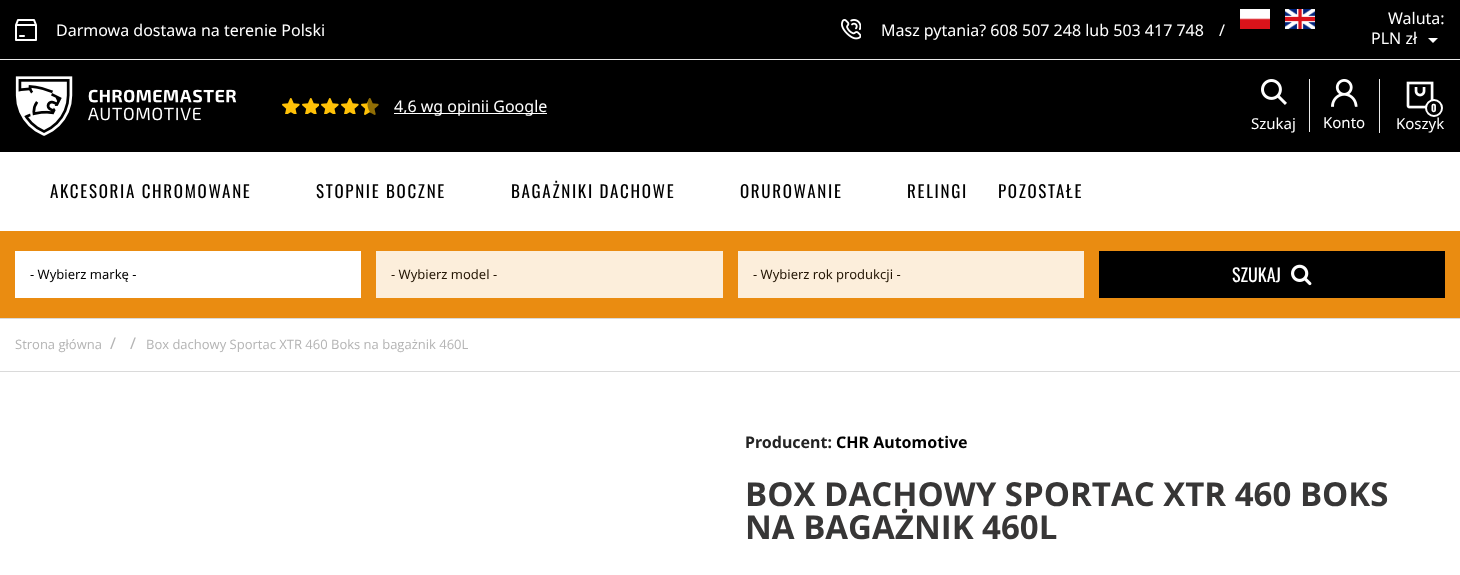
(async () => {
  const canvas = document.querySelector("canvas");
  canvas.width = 1460;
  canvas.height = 575;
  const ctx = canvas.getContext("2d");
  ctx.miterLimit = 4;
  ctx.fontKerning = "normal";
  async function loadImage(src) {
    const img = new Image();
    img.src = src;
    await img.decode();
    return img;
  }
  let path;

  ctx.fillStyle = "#ffffff";
  ctx.fillRect(0, 0, 1460, 575);
  ctx.fillStyle = "#000000";
  ctx.fillRect(0, 0, 1460, 59);
  ctx.fillStyle = "#e9e9e9";
  ctx.fillRect(0, 59, 1460, 1);
  ctx.drawImage(await loadImage("img/1.png"), 15, 19, 22, 22);
  ctx.drawImage(await loadImage("img/2.png"), 841, 19, 20, 21);
  ctx.drawImage(await loadImage("img/3.png"), 1240, 9, 30, 20);
  ctx.drawImage(await loadImage("img/4.png"), 1285, 9, 30, 20);
  ctx.fillStyle = "#ffffff";
  path = new Path2D("M1428 38H1438L1433 43Z");
  ctx.fill(path);
  ctx.fillStyle = "#000000";
  ctx.fillRect(0, 60, 1460, 92);
  ctx.drawImage(await loadImage("img/5.png"), 15, 76, 222, 60);
  ctx.drawImage(await loadImage("img/6.png"), 282, 98, 18, 16);
  ctx.drawImage(await loadImage("img/7.png"), 302, 98, 17, 16);
  ctx.drawImage(await loadImage("img/6.png"), 321, 98, 18, 16);
  ctx.drawImage(await loadImage("img/6.png"), 341, 98, 18, 16);
  ctx.drawImage(await loadImage("img/8.png"), 361, 98, 18, 17);
  ctx.fillStyle = "#ffffff";
  ctx.fillRect(394, 113, 153, 1);
  ctx.drawImage(await loadImage("img/9.png"), 1261, 79, 26, 26);
  ctx.fillStyle = "#e9e9e9";
  ctx.fillRect(1309, 79, 1, 53);
  ctx.drawImage(await loadImage("img/10.png"), 1331, 79, 27, 28);
  ctx.fillRect(1379, 79, 1, 54);
  ctx.drawImage(await loadImage("img/11.png"), 1406, 81, 28, 28);
  ctx.fillStyle = "#000000";
  ctx.beginPath();
  ctx.arc(1434, 108, 8, 0, Math.PI * 2);
  ctx.fill();
  ctx.strokeStyle = "#ffffff";
  ctx.lineWidth = 2;
  ctx.stroke();
  for (const [x, y, w, h, color] of [
    [0, 231, 1460, 87, "#ea8c11"],
    [15, 251, 346, 47, "#ffffff"],
    [376, 251, 347, 47, "#fceedb"],
    [738, 251, 346, 47, "#fceedb"],
    [1099, 251, 346, 47, "#000000"],
  ]) {
    ctx.fillStyle = color;
    ctx.fillRect(x, y, w, h);
  }
  ctx.drawImage(await loadImage("img/12.png"), 1291, 264, 21, 22);
  ctx.fillStyle = "#dadada";
  ctx.fillRect(0, 318, 1460, 1);
  ctx.fillRect(0, 371, 1460, 1);
  ctx.font = "16px Noto Sans";
  ctx.fillStyle = "#ffffff";
  for (const [text, x, y] of [
    ["Darmowa dostawa na terenie Polski", 56, 36],
    ["Masz pytania? 608 507 248 lub 503 417 748", 881, 36],
    ["/", 1219, 36],
    ["Waluta:", 1388, 24],
    ["PLN zł", 1371, 44],
    ["4,6 wg opinii Google", 394, 112],
  ]) {
    ctx.fillText(text, x, y);
  }
  ctx.font = "15px Noto Sans";
  ctx.fillText("Szukaj", 1251, 129);
  ctx.fillText("Konto", 1323, 128);
  ctx.font = "bold 10px Oswald";
  ctx.fillText("0", 1431, 112);
  ctx.font = "15px Noto Sans";
  ctx.fillText("Koszyk", 1396, 129);
  ctx.letterSpacing = "1.7px";
  ctx.font = "17px Oswald";
  ctx.fillStyle = "#000000";
  for (const [text, x, y] of [
    ["AKCESORIA CHROMOWANE", 50, 198],
    ["STOPNIE BOCZNE", 316, 198],
    ["BAGAŻNIKI DACHOWE", 511, 198],
    ["ORUROWANIE", 740, 198],
    ["RELINGI", 907, 198],
    ["POZOSTAŁE", 998, 198],
  ]) {
    ctx.fillText(text, x, y);
  }
  ctx.letterSpacing = "0px";
  ctx.font = "13px Noto Sans";
  ctx.fillText("- Wybierz markę -", 30, 279);
  ctx.fillStyle = "#231503";
  ctx.fillText("- Wybierz model -", 391, 279);
  ctx.fillText("- Wybierz rok produkcji -", 753, 279);
  ctx.font = "18px Oswald";
  ctx.fillStyle = "#ffffff";
  ctx.fillText("SZUKAJ", 1232, 282);
  ctx.font = "13px Open Sans";
  ctx.fillStyle = "#b4b4b4";
  ctx.fillText("Strona główna", 15, 349);
  ctx.font = "16px Noto Sans";
  ctx.fillText("/", 110, 349);
  ctx.fillText("/", 130, 349);
  ctx.font = "13px Open Sans";
  ctx.fillText("Box dachowy Sportac XTR 460 Boks na bagażnik 460L", 146, 349);
  ctx.font = "bold 16px Noto Sans";
  ctx.fillStyle = "#232323";
  ctx.fillText("Producent:", 745, 448);
  ctx.fillStyle = "#000000";
  ctx.fillText("CHR Automotive", 836, 448);
  ctx.font = "bold 33px Open Sans";
  ctx.fillStyle = "#373636";
  ctx.fillText("BOX DACHOWY SPORTAC XTR 460 BOKS", 745, 506);
  ctx.fillText("NA BAGAŻNIK 460L", 745, 539);
})();
